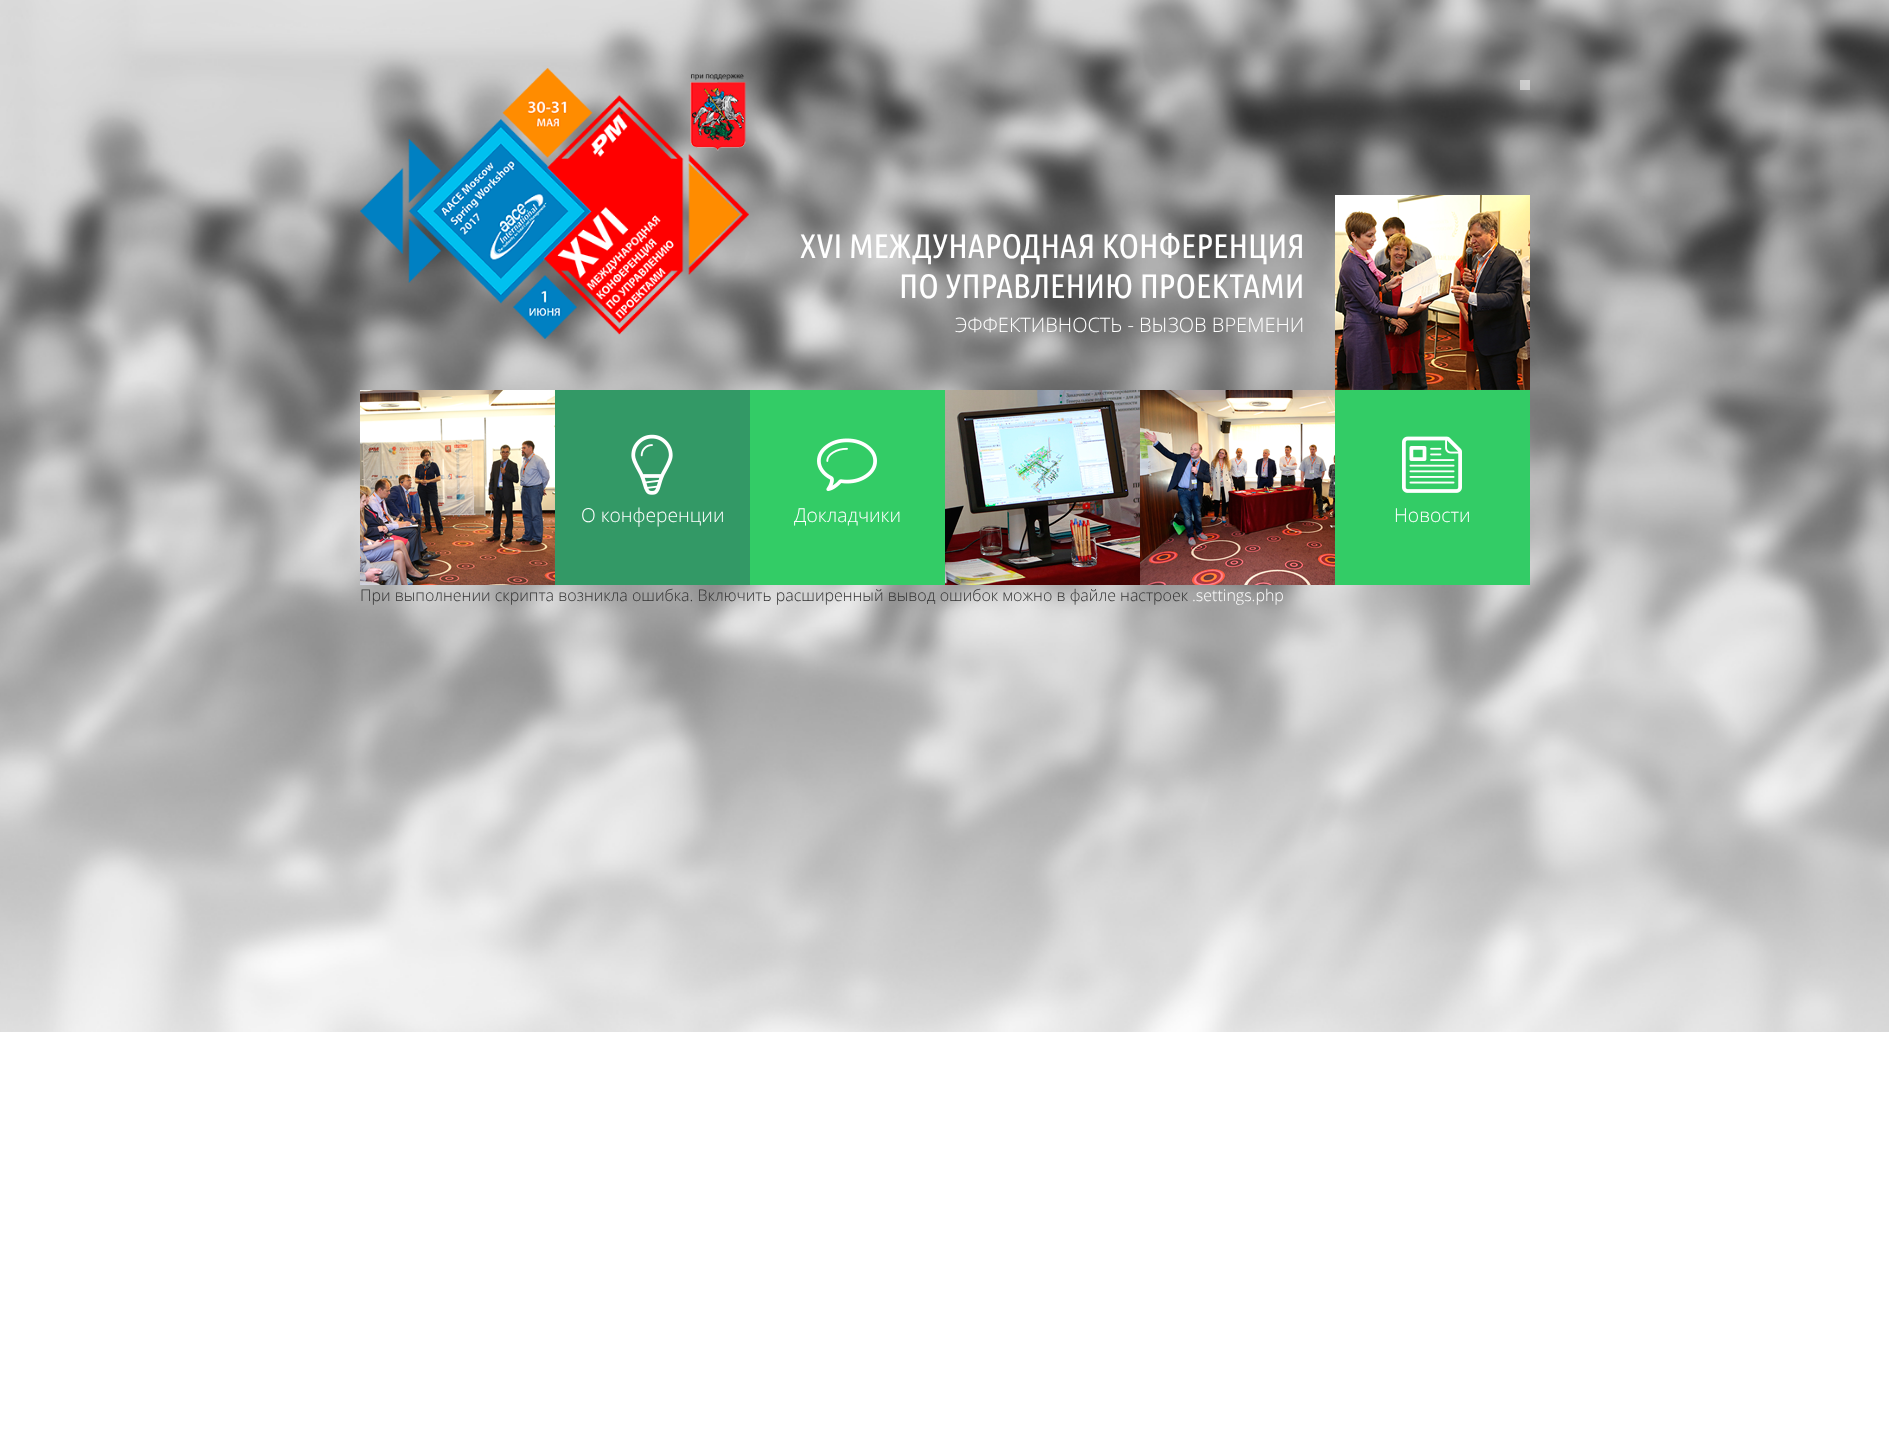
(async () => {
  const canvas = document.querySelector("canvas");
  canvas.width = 1889;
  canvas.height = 1431;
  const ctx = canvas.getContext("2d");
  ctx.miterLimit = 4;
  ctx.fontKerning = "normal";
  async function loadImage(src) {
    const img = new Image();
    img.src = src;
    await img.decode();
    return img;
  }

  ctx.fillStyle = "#ffffff";
  ctx.fillRect(0, 0, 1889, 1431);
  ctx.drawImage(await loadImage("img/1.png"), 0, 0, 1889, 1032);
  ctx.drawImage(await loadImage("img/2.png"), 360, 68, 389, 271);
  ctx.fillStyle = "rgba(255, 255, 255, 0.5)";
  ctx.fillRect(1520, 80, 10, 10);
  ctx.drawImage(await loadImage("img/3.png"), 1335, 195, 195, 195);
  ctx.drawImage(await loadImage("img/4.png"), 360, 390, 195, 195);
  ctx.fillStyle = "#339966";
  ctx.fillRect(555, 390, 195, 195);
  ctx.drawImage(await loadImage("img/5.png"), 631, 434, 42, 61);
  ctx.fillStyle = "#33cc66";
  ctx.fillRect(750, 390, 195, 195);
  ctx.drawImage(await loadImage("img/6.png"), 817, 438, 60, 53);
  ctx.drawImage(await loadImage("img/7.png"), 945, 390, 195, 195);
  ctx.drawImage(await loadImage("img/8.png"), 1140, 390, 195, 195);
  ctx.fillRect(1335, 390, 195, 195);
  ctx.drawImage(await loadImage("img/9.png"), 1402, 436, 60, 57);
  ctx.font = "34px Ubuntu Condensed";
  ctx.fillStyle = "#ffffff";
  ctx.fillText("XVI МЕЖДУНАРОДНАЯ КОНФЕРЕНЦИЯ", 800, 258);
  ctx.fillText("ПО УПРАВЛЕНИЮ ПРОЕКТАМИ", 899, 298);
  ctx.font = "300 20px Open Sans";
  ctx.fillText("ЭФФЕКТИВНОСТЬ - ВЫЗОВ ВРЕМЕНИ", 955, 332);
  ctx.font = "300 19.25px Open Sans";
  for (const [text, x, y] of [
    ["О конференции", 581, 522],
    ["Докладчики", 794, 522],
    ["Новости", 1394, 522],
  ]) {
    ctx.fillText(text, x, y);
  }
  ctx.font = "300 16px Open Sans";
  ctx.fillStyle = "#333333";
  ctx.fillText("При выполнении скрипта возникла ошибка. Включить расширенный вывод ошибок можно в файле настроек", 360, 601);
  ctx.fillStyle = "#ffffff";
  ctx.fillText(".settings.php", 1192, 601);
})();
